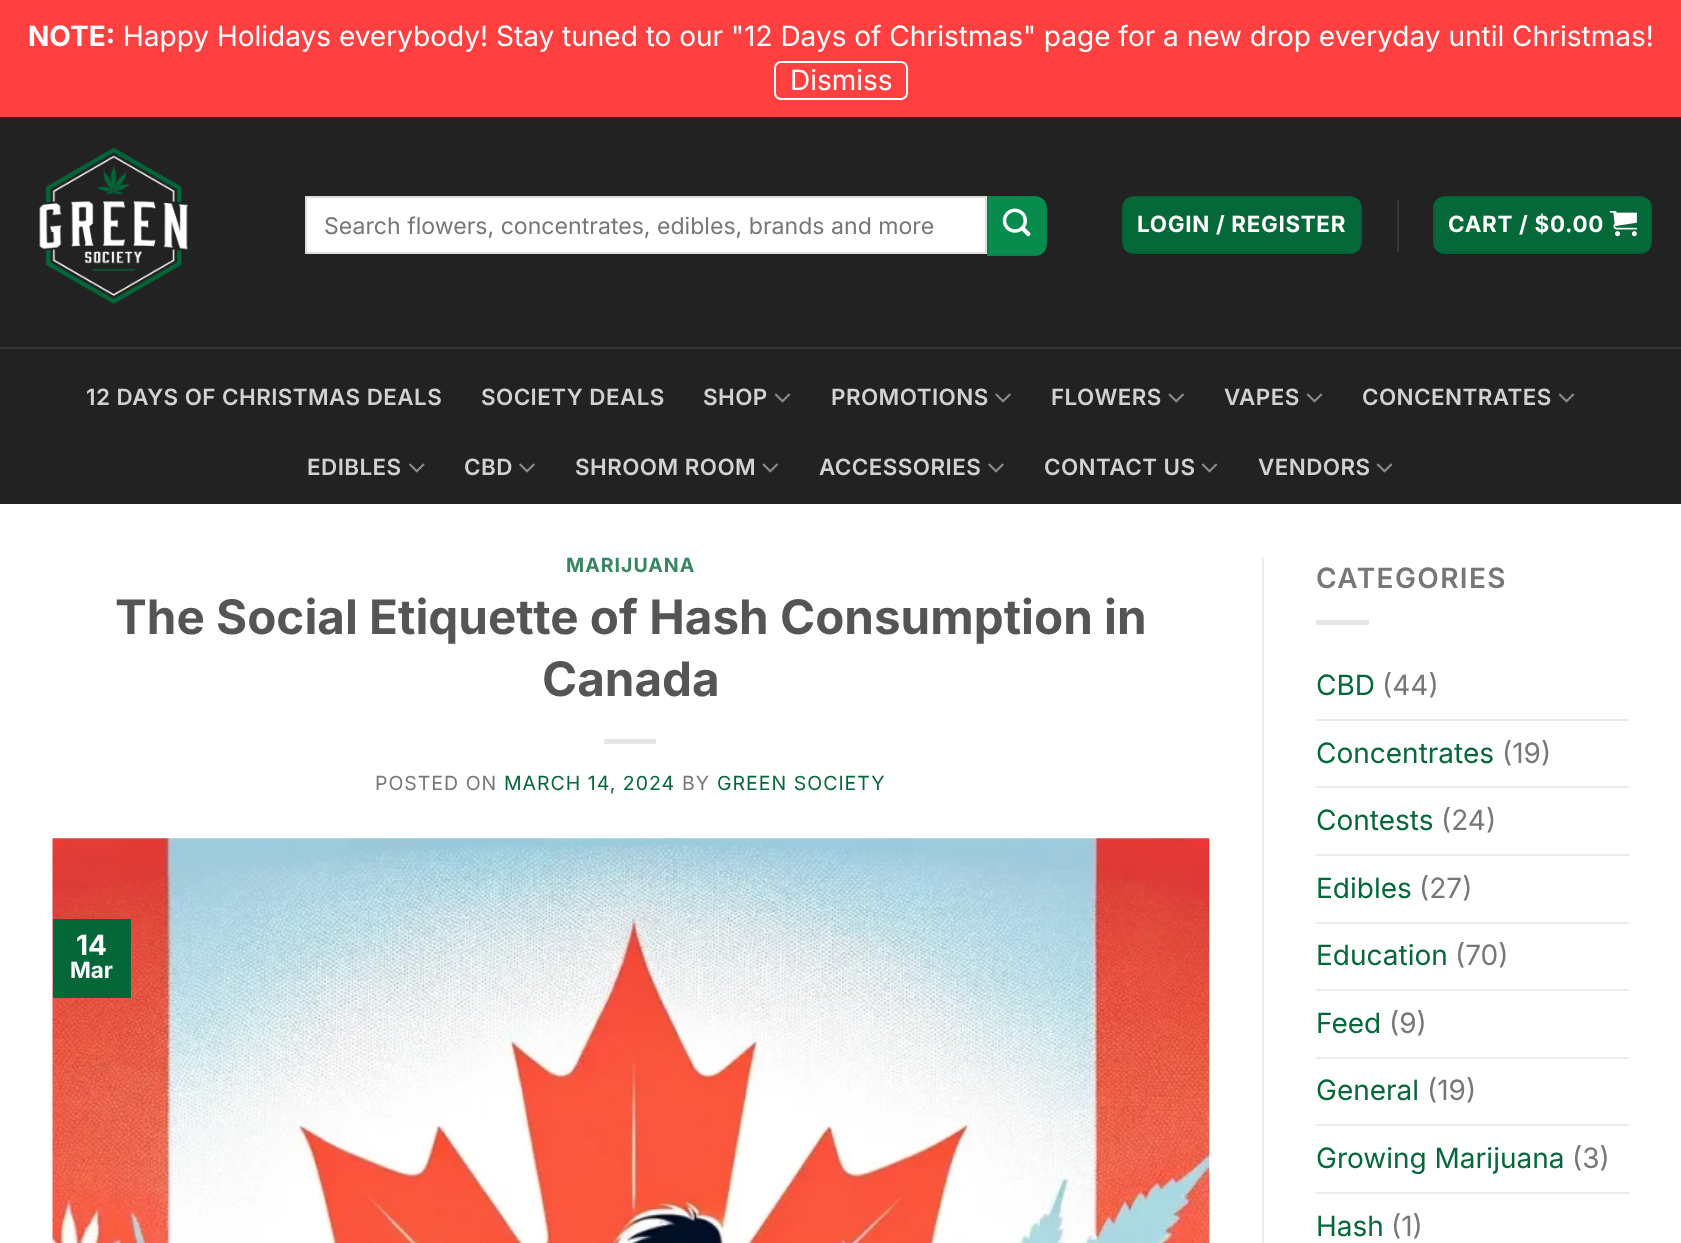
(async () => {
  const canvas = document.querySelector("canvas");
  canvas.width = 1681;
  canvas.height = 1243;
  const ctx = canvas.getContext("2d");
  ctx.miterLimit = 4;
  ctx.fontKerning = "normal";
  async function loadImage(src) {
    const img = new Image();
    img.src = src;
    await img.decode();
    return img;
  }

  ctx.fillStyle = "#ffffff";
  ctx.fillRect(0, 0, 1681, 1243);
  ctx.fillStyle = "#ff4040";
  ctx.fillRect(0, 0, 1681, 117);
  ctx.beginPath();
  ctx.roundRect(775, 62, 132, 37, 6);
  ctx.strokeStyle = "#ffffff";
  ctx.lineWidth = 2;
  ctx.stroke();
  ctx.fillStyle = "#222222";
  ctx.fillRect(0, 117, 1681, 387);
  ctx.drawImage(await loadImage("img/1.png"), 39, 147, 150, 157);
  ctx.fillStyle = "#ffffff";
  ctx.beginPath();
  ctx.rect(306, 197, 680, 56);
  ctx.fill();
  ctx.strokeStyle = "#dddddd";
  ctx.stroke();
  ctx.fillStyle = "#078c4d";
  ctx.beginPath();
  ctx.roundRect(987, 196, 60, 60, [0, 12, 12, 0]);
  ctx.fill();
  ctx.strokeStyle = "rgba(0, 0, 0, 0.05)";
  ctx.strokeRect(988, 197, 58, 58);
  ctx.drawImage(await loadImage("img/2.png"), 1002, 208, 29, 29);
  ctx.fillStyle = "#056839";
  ctx.beginPath();
  ctx.roundRect(1122, 196, 240, 58, 12);
  ctx.fill();
  ctx.strokeRect(1123, 197, 238, 56);
  ctx.fillStyle = "#383838";
  ctx.fillRect(1397, 200, 2, 52);
  ctx.fillStyle = "#056839";
  ctx.beginPath();
  ctx.roundRect(1433, 196, 219, 58, 12);
  ctx.fill();
  ctx.strokeRect(1434, 197, 217, 56);
  ctx.drawImage(await loadImage("img/3.png"), 1610, 211, 27, 26);
  ctx.fillStyle = "#353535";
  ctx.fillRect(0, 347, 1681, 2);
  ctx.drawImage(await loadImage("img/4.png"), 774, 393, 17, 10);
  ctx.drawImage(await loadImage("img/5.png"), 995, 393, 16, 10);
  ctx.drawImage(await loadImage("img/6.png"), 1168, 393, 16, 10);
  ctx.drawImage(await loadImage("img/4.png"), 1306, 393, 17, 10);
  ctx.drawImage(await loadImage("img/4.png"), 1558, 393, 17, 10);
  ctx.drawImage(await loadImage("img/7.png"), 409, 463, 16, 10);
  ctx.drawImage(await loadImage("img/5.png"), 519, 463, 16, 10);
  ctx.drawImage(await loadImage("img/6.png"), 762, 463, 16, 10);
  ctx.drawImage(await loadImage("img/5.png"), 988, 463, 16, 10);
  ctx.drawImage(await loadImage("img/4.png"), 1201, 463, 17, 10);
  ctx.drawImage(await loadImage("img/4.png"), 1376, 463, 17, 10);
  ctx.fillStyle = "#e6e6e6";
  ctx.fillRect(604, 739, 52, 5);
  ctx.drawImage(await loadImage("img/8.png"), 52, 838, 1158, 405);
  for (const [x, y, w, h, color] of [
    [53, 919, 78, 79, "#046738"],
    [1262, 557, 2, 686, "#ececec"],
    [1316, 620, 53, 5, "#e6e6e6"],
    [1316, 719, 313, 2, "#ececec"],
    [1316, 786, 313, 2, "#ececec"],
    [1316, 854, 313, 2, "#ececec"],
    [1316, 922, 313, 2, "#ececec"],
    [1316, 989, 313, 2, "#ececec"],
    [1316, 1057, 313, 2, "#ececec"],
    [1316, 1124, 313, 2, "#ececec"],
    [1316, 1192, 313, 2, "#ececec"],
  ]) {
    ctx.fillStyle = color;
    ctx.fillRect(x, y, w, h);
  }
  ctx.font = "bold 28px Inter";
  ctx.fillStyle = "#ffffff";
  ctx.fillText("NOTE:", 28, 46);
  ctx.font = "28px Inter";
  ctx.fillText("Happy Holidays everybody! Stay tuned to our \"12 Days of Christmas\" page for a new drop everyday until Christmas!", 123, 46);
  ctx.fillText("Dismiss", 790, 90);
  ctx.font = "23.1px Inter";
  ctx.fillStyle = "#777777";
  ctx.fillText("Search flowers, concentrates, edibles, brands and more", 324, 234);
  ctx.letterSpacing = "0.7px";
  ctx.font = "bold 22.4px Inter";
  ctx.fillStyle = "#ffffff";
  ctx.fillText("LOGIN / REGISTER", 1137, 232);
  ctx.fillText("CART / $0.00", 1448, 232);
  ctx.letterSpacing = "0.45px";
  ctx.font = "600 22.4px Inter";
  ctx.fillStyle = "#d2d2d2";
  for (const [text, x, y] of [
    ["12 DAYS OF CHRISTMAS DEALS", 86, 405],
    ["SOCIETY DEALS", 481, 405],
    ["SHOP", 703, 405],
    ["PROMOTIONS", 831, 405],
    ["FLOWERS", 1051, 405],
    ["VAPES", 1224, 405],
    ["CONCENTRATES", 1362, 405],
    ["EDIBLES", 307, 475],
    ["CBD", 464, 475],
    ["SHROOM ROOM", 575, 475],
    ["ACCESSORIES", 819, 475],
    ["CONTACT US", 1044, 475],
    ["VENDORS", 1258, 475],
  ]) {
    ctx.fillText(text, x, y);
  }
  ctx.letterSpacing = "1px";
  ctx.font = "bold 19.5px Inter";
  ctx.fillStyle = "#378661";
  ctx.fillText("MARIJUANA", 566, 572);
  ctx.letterSpacing = "0px";
  ctx.font = "bold 47.6px Inter";
  ctx.fillStyle = "#555555";
  ctx.fillText("The Social Etiquette of Hash Consumption in", 115, 634);
  ctx.fillText("Canada", 542, 696);
  ctx.letterSpacing = "1px";
  ctx.font = "19.5px Inter";
  ctx.fillStyle = "#777777";
  ctx.fillText("POSTED ON", 375, 790);
  ctx.fillStyle = "#056839";
  ctx.fillText("MARCH 14, 2024", 504, 790);
  ctx.fillStyle = "#777777";
  ctx.fillText("BY", 682, 790);
  ctx.fillStyle = "#056839";
  ctx.fillText("GREEN SOCIETY", 717, 790);
  ctx.letterSpacing = "0px";
  ctx.font = "bold 28px Inter";
  ctx.fillStyle = "#ffffff";
  ctx.fillText("14", 76, 955);
  ctx.font = "bold 22.4px Inter";
  ctx.fillText("Mar", 70, 978);
  ctx.letterSpacing = "1.4px";
  ctx.font = "600 28px Inter";
  ctx.fillStyle = "#777777";
  ctx.fillText("CATEGORIES", 1316, 588);
  ctx.letterSpacing = "0px";
  ctx.font = "28px Inter";
  ctx.fillStyle = "#056839";
  ctx.fillText("CBD", 1316, 695);
  ctx.fillStyle = "#777777";
  ctx.fillText("(44)", 1382, 695);
  ctx.fillStyle = "#056839";
  ctx.fillText("Concentrates", 1316, 763);
  ctx.fillStyle = "#777777";
  ctx.fillText("(19)", 1502, 763);
  ctx.fillStyle = "#056839";
  ctx.fillText("Contests", 1316, 830);
  ctx.fillStyle = "#777777";
  ctx.fillText("(24)", 1441, 830);
  ctx.fillStyle = "#056839";
  ctx.fillText("Edibles", 1316, 898);
  ctx.fillStyle = "#777777";
  ctx.fillText("(27)", 1419, 898);
  ctx.fillStyle = "#056839";
  ctx.fillText("Education", 1316, 965);
  ctx.fillStyle = "#777777";
  ctx.fillText("(70)", 1455, 965);
  ctx.fillStyle = "#056839";
  ctx.fillText("Feed", 1316, 1033);
  ctx.fillStyle = "#777777";
  ctx.fillText("(9)", 1389, 1033);
  ctx.fillStyle = "#056839";
  ctx.fillText("General", 1316, 1100);
  ctx.fillStyle = "#777777";
  ctx.fillText("(19)", 1427, 1100);
  ctx.fillStyle = "#056839";
  ctx.fillText("Growing Marijuana", 1316, 1168);
  ctx.fillStyle = "#777777";
  ctx.fillText("(3)", 1572, 1168);
  ctx.fillStyle = "#056839";
  ctx.fillText("Hash", 1316, 1236);
  ctx.fillStyle = "#777777";
  ctx.fillText("(1)", 1391, 1236);
})();
